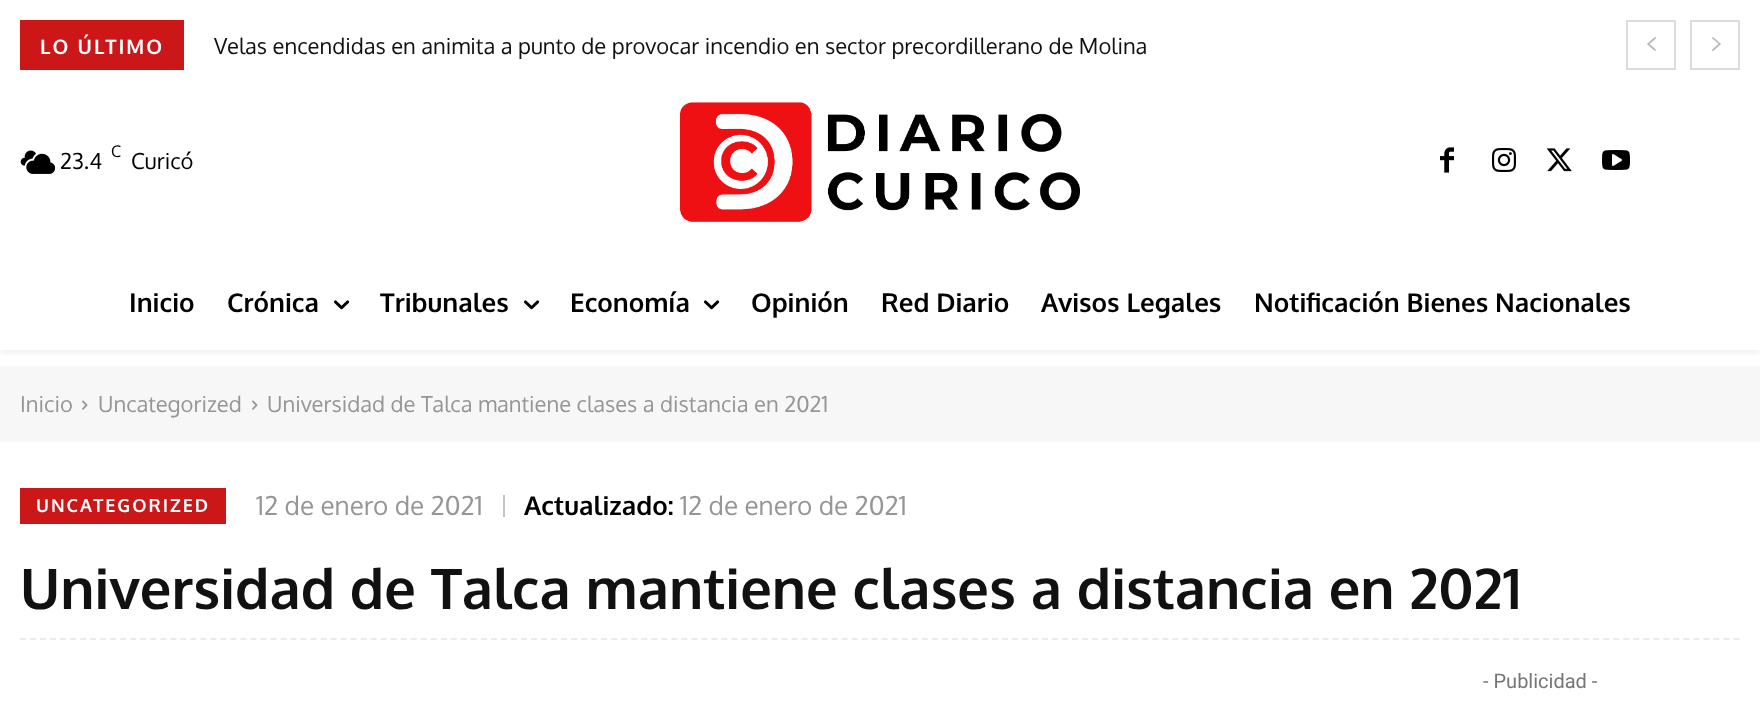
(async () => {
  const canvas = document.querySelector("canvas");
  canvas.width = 1760;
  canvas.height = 712;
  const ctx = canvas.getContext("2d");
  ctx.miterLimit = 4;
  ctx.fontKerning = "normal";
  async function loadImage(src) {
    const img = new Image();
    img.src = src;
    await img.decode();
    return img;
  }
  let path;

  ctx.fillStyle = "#ffffff";
  ctx.fillRect(0, 0, 1760, 712);
  ctx.fillStyle = "#cc1719";
  ctx.fillRect(20, 20, 164, 50);
  ctx.strokeStyle = "#dcdcdc";
  ctx.lineWidth = 2;
  ctx.strokeRect(1627, 21, 48, 48);
  ctx.drawImage(await loadImage("img/1.png"), 1647, 37, 9, 14);
  ctx.strokeRect(1691, 21, 48, 48);
  ctx.drawImage(await loadImage("img/2.png"), 1712, 37, 9, 14);
  ctx.drawImage(await loadImage("img/3.png"), 20, 150, 36, 24);
  ctx.drawImage(await loadImage("img/4.png"), 680, 102, 400, 120);
  ctx.drawImage(await loadImage("img/5.png"), 1440, 147, 14, 26);
  ctx.drawImage(await loadImage("img/6.png"), 1492, 148, 24, 24);
  ctx.drawImage(await loadImage("img/7.png"), 1546, 148, 26, 24);
  ctx.drawImage(await loadImage("img/8.png"), 1602, 150, 28, 20);
  ctx.save();
  ctx.beginPath();
  ctx.rect(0, 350, 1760, 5);
  ctx.clip();
  ctx.fillStyle = "rgba(0, 0, 0, 0.05)";
  ctx.filter = "blur(3px)";
  ctx.beginPath();
  ctx.rect(0, 258, 1760, 96);
  ctx.fill();
  ctx.filter = "none";
  ctx.restore();
  ctx.drawImage(await loadImage("img/9.png"), 334, 300, 16, 10);
  ctx.drawImage(await loadImage("img/9.png"), 524, 300, 16, 10);
  ctx.drawImage(await loadImage("img/9.png"), 704, 300, 16, 10);
  ctx.fillStyle = "#f7f7f7";
  ctx.fillRect(0, 366, 1760, 76);
  ctx.drawImage(await loadImage("img/10.png"), 82, 400, 6, 10);
  ctx.drawImage(await loadImage("img/10.png"), 252, 400, 6, 10);
  ctx.fillStyle = "#cc1719";
  ctx.fillRect(20, 488, 206, 36);
  ctx.fillStyle = "#c4c4c4";
  ctx.fillRect(503, 495, 2, 22);
  path = new Path2D("M20 639H1740");
  ctx.strokeStyle = "#ebebeb";
  ctx.setLineDash([6, 4.02]);
  ctx.stroke(path);
  ctx.letterSpacing = "2px";
  ctx.font = "bold 20px Oxygen";
  ctx.fillStyle = "#ffffff";
  ctx.fillText("LO ÚLTIMO", 40, 54);
  ctx.letterSpacing = "0px";
  ctx.font = "22px Oxygen";
  ctx.fillStyle = "#111111";
  ctx.fillText("Velas encendidas en animita a punto de provocar incendio en sector precordillerano de Molina", 214, 54);
  ctx.fillStyle = "#000000";
  ctx.fillText("23.4", 60, 169);
  ctx.font = "16px Oxygen";
  ctx.fillText("C", 111, 157);
  ctx.font = "22px Oxygen";
  ctx.fillText("Curicó", 131, 169);
  ctx.font = "bold 26px Oxygen";
  for (const [text, x, y] of [
    ["Inicio", 129, 312],
    ["Crónica", 227, 312],
    ["Tribunales", 380, 312],
    ["Economía", 570, 312],
    ["Opinión", 751, 312],
    ["Red Diario", 881, 312],
    ["Avisos Legales", 1041, 312],
    ["Notificación Bienes Nacionales", 1254, 312],
  ]) {
    ctx.fillText(text, x, y);
  }
  ctx.font = "22px Oxygen";
  ctx.fillStyle = "#969696";
  for (const [text, x, y] of [
    ["Inicio", 20, 412],
    ["Uncategorized", 98, 412],
    ["Universidad de Talca mantiene clases a distancia en 2021", 267, 412],
  ]) {
    ctx.fillText(text, x, y);
  }
  ctx.letterSpacing = "2px";
  ctx.font = "bold 18px Oxygen";
  ctx.fillStyle = "#ffffff";
  ctx.fillText("UNCATEGORIZED", 36, 512);
  ctx.letterSpacing = "0px";
  ctx.font = "26px Oxygen";
  ctx.fillStyle = "#969696";
  ctx.fillText("12 de enero de 2021", 256, 515);
  ctx.font = "bold 26px Oxygen";
  ctx.fillStyle = "#000000";
  ctx.fillText("Actualizado:", 524, 515);
  ctx.font = "26px Oxygen";
  ctx.fillStyle = "#969696";
  ctx.fillText("12 de enero de 2021", 680, 515);
  ctx.font = "bold 56px Oxygen";
  ctx.fillStyle = "#111111";
  ctx.fillText("Universidad de Talca mantiene clases a distancia en 2021", 20, 609);
  ctx.font = "20px Roboto";
  ctx.fillStyle = "#767676";
  ctx.fillText("- Publicidad -", 1483, 688);
})();
